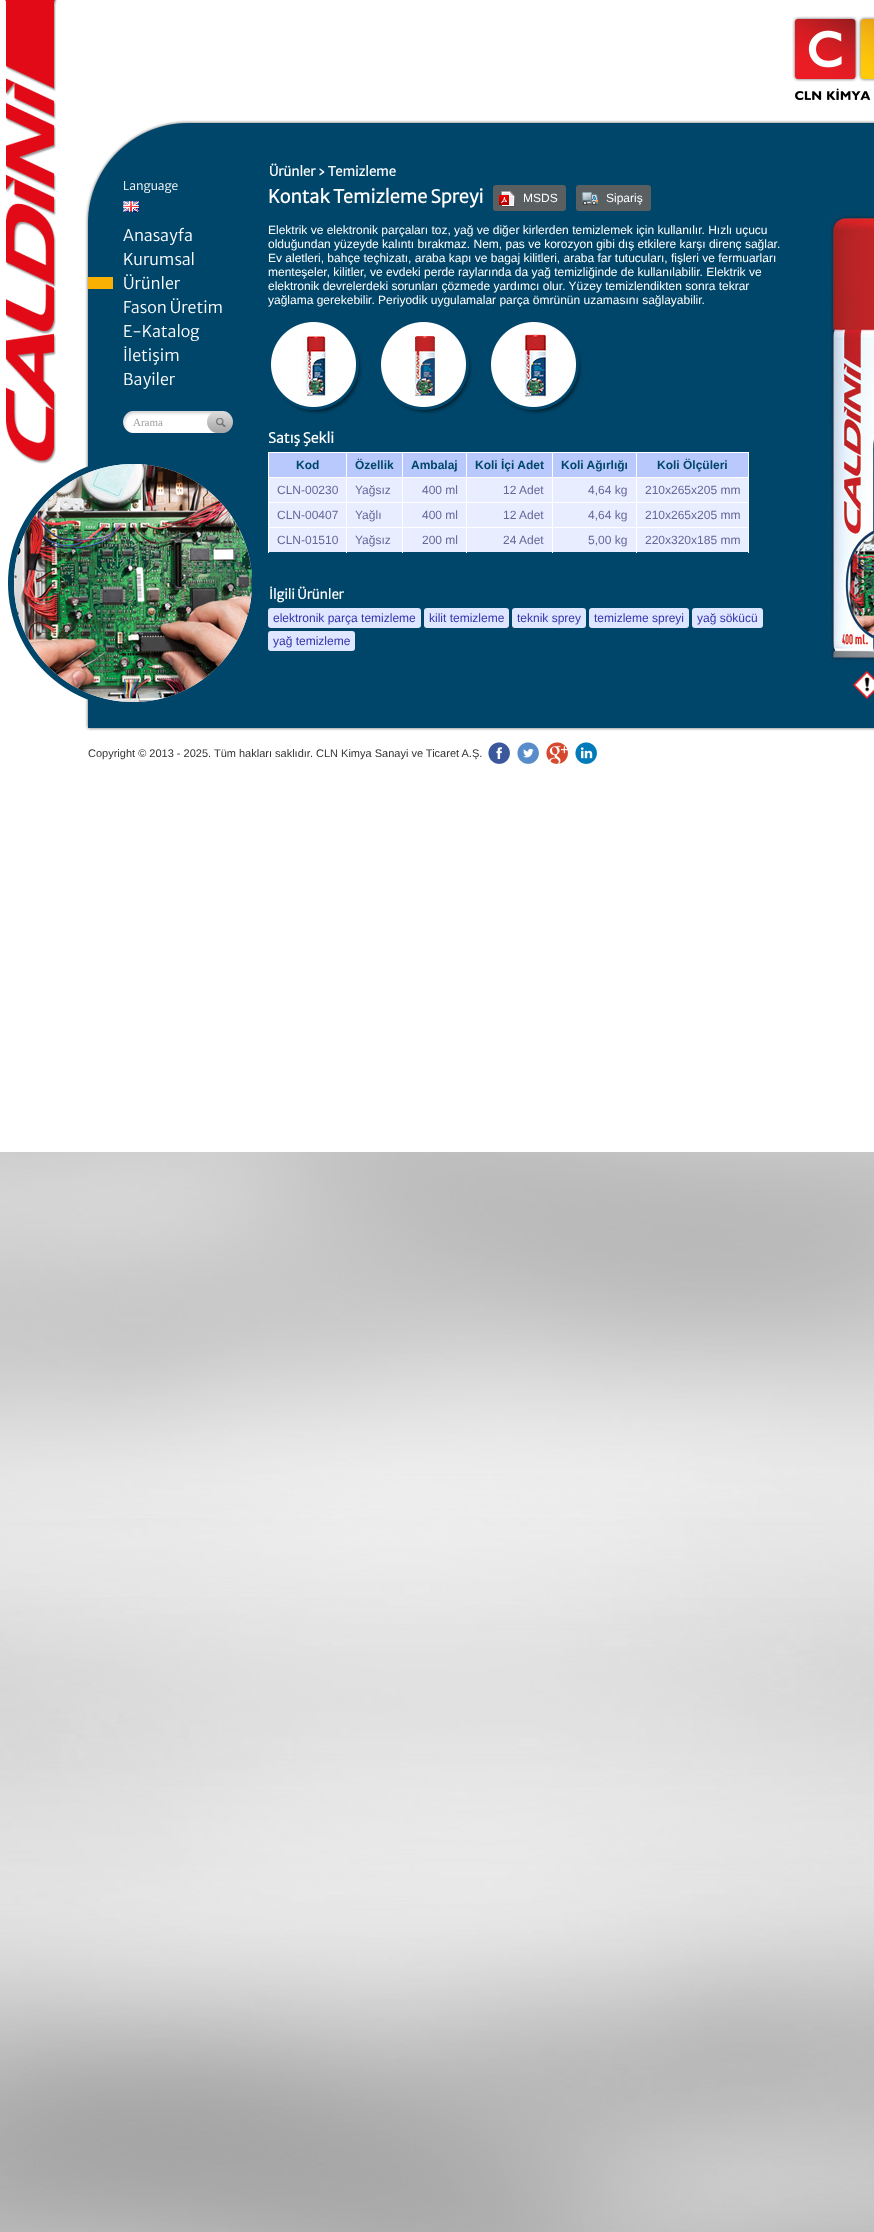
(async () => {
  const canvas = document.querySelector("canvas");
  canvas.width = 874;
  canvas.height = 2232;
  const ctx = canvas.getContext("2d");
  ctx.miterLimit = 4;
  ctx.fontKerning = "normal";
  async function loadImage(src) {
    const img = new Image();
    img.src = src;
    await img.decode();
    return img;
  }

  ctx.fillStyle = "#ffffff";
  ctx.fillRect(0, 0, 874, 2232);
  ctx.drawImage(await loadImage("img/1.png"), 0, 1152, 874, 1080);
  ctx.drawImage(await loadImage("img/2.png"), 5, 0, 52, 464);
  ctx.drawImage(await loadImage("img/3.png"), 792, 16, 82, 84);
  ctx.drawImage(await loadImage("img/4.png"), 85, 120, 789, 611);
  ctx.drawImage(await loadImage("img/5.png"), 123, 201, 16, 11);
  ctx.fillStyle = "#f8b103";
  ctx.fillRect(88, 277, 25, 12);
  ctx.drawImage(await loadImage("img/6.png"), 123, 411, 110, 22);
  ctx.drawImage(await loadImage("img/7.png"), 8, 465, 243, 236);
  ctx.drawImage(await loadImage("img/8.png"), 14, 464, 238, 238);
  ctx.fillStyle = "#5a5f62";
  ctx.beginPath();
  ctx.roundRect(493, 185, 73, 26, 3);
  ctx.fill();
  ctx.drawImage(await loadImage("img/9.png"), 499, 191, 16, 16);
  ctx.beginPath();
  ctx.roundRect(576, 185, 75, 26, 3);
  ctx.fill();
  ctx.drawImage(await loadImage("img/10.png"), 582, 192, 16, 13);
  ctx.drawImage(await loadImage("img/12.png"), 271, 322, 85, 85);
  ctx.drawImage(await loadImage("img/11.png"), 269, 319, 94, 95);
  ctx.drawImage(await loadImage("img/14.png"), 381, 322, 85, 85);
  ctx.drawImage(await loadImage("img/13.png"), 378, 319, 95, 95);
  ctx.drawImage(await loadImage("img/16.png"), 491, 322, 85, 85);
  ctx.drawImage(await loadImage("img/15.png"), 489, 319, 94, 95);
  for (const [x, y, w, h, color] of [
    [269, 453, 77, 24, "#b9c9fe"],
    [636, 452, 113, 1, "#ffffff"],
    [636, 477, 113, 1, "#ffffff"],
    [269, 478, 479, 74, "#e8edff"],
    [636, 502, 113, 1, "#ffffff"],
    [636, 527, 113, 1, "#ffffff"],
    [636, 527, 1, 26, "#ffffff"],
    [552, 527, 85, 1, "#ffffff"],
    [636, 502, 1, 26, "#ffffff"],
    [552, 502, 85, 1, "#ffffff"],
    [636, 477, 1, 26, "#ffffff"],
    [552, 477, 85, 1, "#ffffff"],
    [636, 452, 1, 26, "#ffffff"],
    [552, 452, 85, 1, "#ffffff"],
    [552, 527, 1, 26, "#ffffff"],
    [466, 527, 87, 1, "#ffffff"],
    [552, 502, 1, 26, "#ffffff"],
    [466, 502, 87, 1, "#ffffff"],
    [552, 477, 1, 26, "#ffffff"],
    [466, 477, 87, 1, "#ffffff"],
    [552, 452, 1, 26, "#ffffff"],
    [466, 452, 87, 1, "#ffffff"],
    [466, 527, 1, 26, "#ffffff"],
    [402, 527, 65, 1, "#ffffff"],
    [466, 502, 1, 26, "#ffffff"],
    [402, 502, 65, 1, "#ffffff"],
    [466, 477, 1, 26, "#ffffff"],
    [402, 477, 65, 1, "#ffffff"],
    [466, 452, 1, 26, "#ffffff"],
    [402, 452, 65, 1, "#ffffff"],
    [402, 527, 1, 26, "#ffffff"],
    [346, 527, 57, 1, "#ffffff"],
    [402, 502, 1, 26, "#ffffff"],
    [346, 502, 57, 1, "#ffffff"],
    [402, 477, 1, 26, "#ffffff"],
    [346, 477, 57, 1, "#ffffff"],
    [402, 452, 1, 26, "#ffffff"],
    [346, 452, 57, 1, "#ffffff"],
    [346, 527, 1, 26, "#ffffff"],
    [268, 527, 79, 1, "#ffffff"],
    [346, 502, 1, 26, "#ffffff"],
    [268, 502, 79, 1, "#ffffff"],
    [346, 477, 1, 26, "#ffffff"],
    [268, 477, 79, 1, "#ffffff"],
    [346, 452, 1, 26, "#ffffff"],
    [268, 452, 79, 1, "#ffffff"],
    [268, 527, 1, 26, "#ffffff"],
    [268, 502, 1, 26, "#ffffff"],
    [268, 477, 1, 26, "#ffffff"],
    [268, 452, 1, 26, "#ffffff"],
    [347, 453, 55, 24, "#b9c9fe"],
    [403, 453, 63, 24, "#b9c9fe"],
    [467, 453, 85, 24, "#b9c9fe"],
    [553, 453, 83, 24, "#b9c9fe"],
    [637, 453, 111, 24, "#b9c9fe"],
    [748, 527, 1, 26, "#ffffff"],
    [748, 502, 1, 26, "#ffffff"],
    [748, 477, 1, 26, "#ffffff"],
    [748, 452, 1, 26, "#ffffff"],
  ]) {
    ctx.fillStyle = color;
    ctx.fillRect(x, y, w, h);
  }
  ctx.fillStyle = "#dfe6ff";
  ctx.beginPath();
  ctx.roundRect(268, 608, 153, 20, 3);
  ctx.fill();
  ctx.beginPath();
  ctx.roundRect(424, 608, 85, 20, 3);
  ctx.fill();
  ctx.beginPath();
  ctx.roundRect(512, 608, 74, 20, 3);
  ctx.fill();
  ctx.beginPath();
  ctx.roundRect(589, 608, 100, 20, 3);
  ctx.fill();
  ctx.beginPath();
  ctx.roundRect(692, 608, 71, 20, 3);
  ctx.fill();
  ctx.beginPath();
  ctx.roundRect(268, 631, 87, 20, 3);
  ctx.fill();
  ctx.drawImage(await loadImage("img/17.png"), 828, 213, 46, 448);
  ctx.drawImage(await loadImage("img/18.png"), 853, 671, 21, 28);
  ctx.drawImage(await loadImage("img/19.png"), 488, 742, 22, 22);
  ctx.drawImage(await loadImage("img/20.png"), 517, 742, 22, 22);
  ctx.drawImage(await loadImage("img/21.png"), 546, 742, 22, 22);
  ctx.drawImage(await loadImage("img/22.png"), 575, 742, 22, 22);
  ctx.font = "300 12px Merriweather Sans";
  ctx.fillStyle = "#ffffff";
  ctx.fillText("Language", 123, 190);
  ctx.font = "300 16px Merriweather Sans";
  for (const [text, x, y] of [
    ["Anasayfa", 123, 241],
    ["Kurumsal", 123, 265],
    ["Ürünler", 123, 289],
    ["Fason Üretim", 123, 313],
    ["E-Katalog", 123, 337],
    ["İletişim", 123, 361],
    ["Bayiler", 123, 385],
  ]) {
    ctx.fillText(text, x, y);
  }
  ctx.font = "11px Liberation Serif";
  ctx.fillStyle = "#9d9d9d";
  ctx.fillText("Arama", 133, 426);
  ctx.font = "bold 13px Merriweather Sans";
  ctx.fillStyle = "#ffffff";
  ctx.fillText("Ürünler › Temizleme", 269, 176);
  ctx.font = "bold 18px Merriweather Sans";
  ctx.fillText("Kontak Temizleme Spreyi", 268, 203);
  ctx.font = "12px Liberation Sans";
  for (const [text, x, y] of [
    ["MSDS", 523, 202],
    ["Sipariş", 606, 202],
    ["Elektrik ve elektronik parçaları toz, yağ ve diğer kirlerden temizlemek için kullanılır. Hızlı uçucu", 268, 234],
    ["olduğundan yüzeyde kalıntı bırakmaz. Nem, pas ve korozyon gibi dış etkilere karşı direnç sağlar.", 268, 248],
    ["Ev aletleri, bahçe teçhizatı, araba kapı ve bagaj kilitleri, araba far tutucuları, fişleri ve fermuarları", 268, 262],
    ["menteşeler, kilitler, ve evdeki perde raylarında da yağ temizliğinde de kullanılabilir. Elektrik ve", 268, 276],
    ["elektronik devrelerdeki sorunları çözmede yardımcı olur. Yüzey temizlendikten sonra tekrar", 268, 290],
    ["yağlama gerekebilir. Periyodik uygulamalar parça ömrünün uzamasını sağlayabilir.", 268, 304],
  ]) {
    ctx.fillText(text, x, y);
  }
  ctx.font = "bold 14px Merriweather Sans";
  ctx.fillText("Satış Şekli", 268, 443);
  ctx.font = "bold 12px Liberation Sans";
  ctx.fillStyle = "#00466a";
  for (const [text, x, y] of [
    ["Kod", 296, 469],
    ["Özellik", 355, 469],
    ["Ambalaj", 411, 469],
    ["Koli İçi Adet", 475, 469],
    ["Koli Ağırlığı", 561, 469],
    ["Koli Ölçüleri", 657, 469],
  ]) {
    ctx.fillText(text, x, y);
  }
  ctx.font = "12px Liberation Sans";
  ctx.fillStyle = "#666699";
  for (const [text, x, y] of [
    ["CLN-00230", 277, 494],
    ["Yağsız", 355, 494],
    ["400 ml", 422, 494],
    ["12 Adet", 503, 494],
    ["4,64 kg", 588, 494],
    ["210x265x205 mm", 645, 494],
    ["CLN-00407", 277, 519],
    ["Yağlı", 355, 519],
    ["400 ml", 422, 519],
    ["12 Adet", 503, 519],
    ["4,64 kg", 588, 519],
    ["210x265x205 mm", 645, 519],
    ["CLN-01510", 277, 544],
    ["Yağsız", 355, 544],
    ["200 ml", 422, 544],
    ["24 Adet", 503, 544],
    ["5,00 kg", 588, 544],
    ["220x320x185 mm", 645, 544],
  ]) {
    ctx.fillText(text, x, y);
  }
  ctx.font = "bold 13px Merriweather Sans";
  ctx.fillStyle = "#ffffff";
  ctx.fillText("İlgili Ürünler", 269, 599);
  ctx.font = "12px Liberation Sans";
  ctx.fillStyle = "#3333aa";
  for (const [text, x, y] of [
    ["elektronik parça temizleme", 273, 622],
    ["kilit temizleme", 429, 622],
    ["teknik sprey", 517, 622],
    ["temizleme spreyi", 594, 622],
    ["yağ sökücü", 697, 622],
    ["yağ temizleme", 273, 645],
  ]) {
    ctx.fillText(text, x, y);
  }
  ctx.font = "11px Liberation Sans";
  ctx.fillStyle = "#333333";
  ctx.fillText("Copyright © 2013 - 2025. Tüm hakları saklıdır. CLN Kimya Sanayi ve Ticaret A.Ş.", 88, 757);
})();
